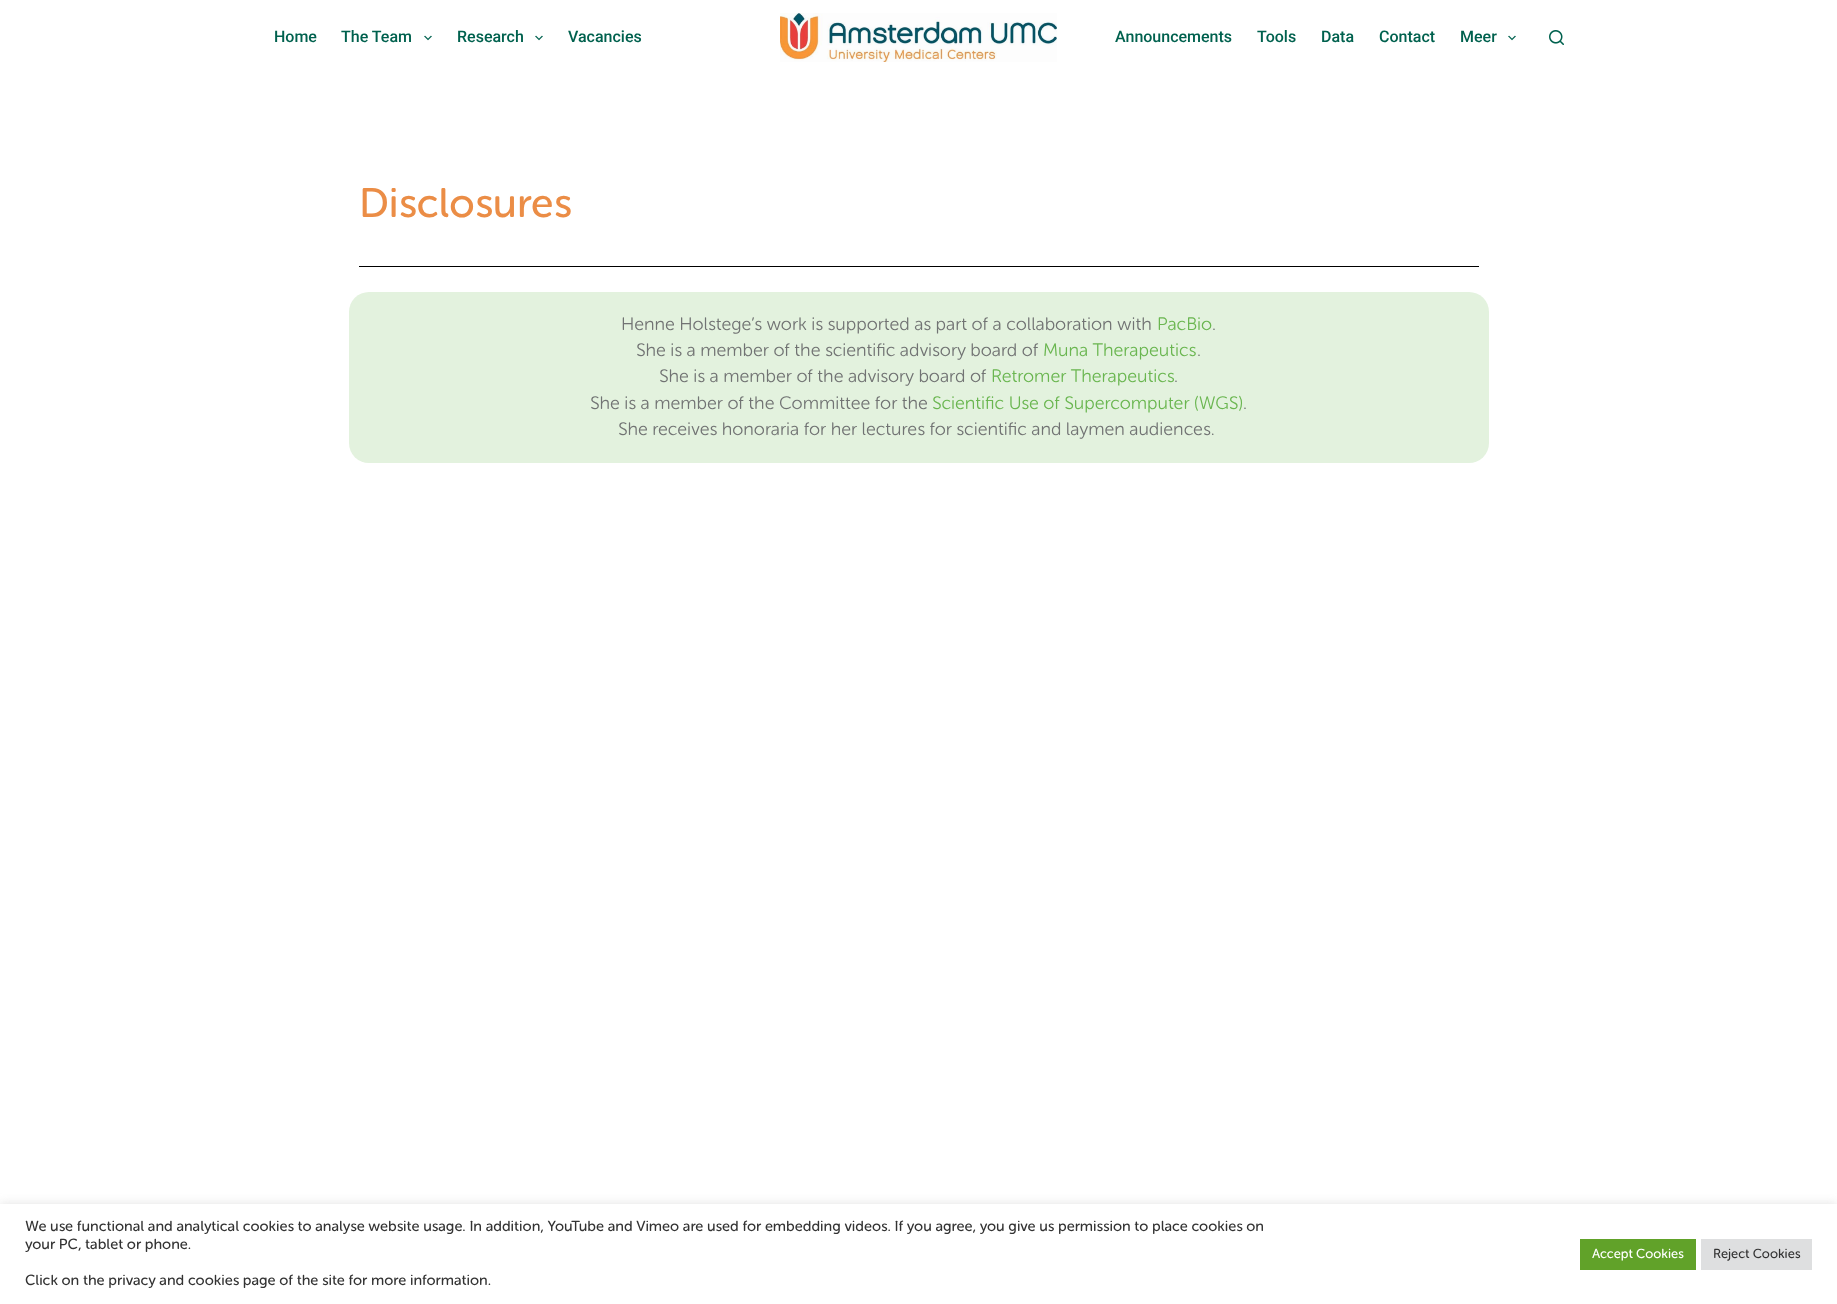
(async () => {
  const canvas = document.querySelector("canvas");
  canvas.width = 1837;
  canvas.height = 1304;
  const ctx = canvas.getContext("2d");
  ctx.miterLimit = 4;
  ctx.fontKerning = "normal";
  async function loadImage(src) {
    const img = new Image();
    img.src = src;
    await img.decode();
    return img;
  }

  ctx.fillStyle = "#ffffff";
  ctx.fillRect(0, 0, 1837, 1304);
  ctx.drawImage(await loadImage("img/1.png"), 424, 35, 8, 6);
  ctx.drawImage(await loadImage("img/1.png"), 535, 35, 8, 6);
  ctx.drawImage(await loadImage("img/2.png"), 780, 13, 277, 49);
  ctx.drawImage(await loadImage("img/1.png"), 1508, 35, 8, 6);
  ctx.drawImage(await loadImage("img/3.png"), 1549, 30, 15, 15);
  ctx.fillStyle = "#000000";
  ctx.fillRect(359, 266, 1120, 1);
  ctx.fillStyle = "#e3f2de";
  ctx.beginPath();
  ctx.roundRect(349, 292, 1140, 171, 20);
  ctx.fill();
  ctx.fillStyle = "rgba(172, 171, 171, 0.3)";
  ctx.filter = "blur(5px)";
  ctx.beginPath();
  ctx.rect(0, 1203, 1837, 100);
  ctx.fill();
  ctx.filter = "none";
  for (const [x, y, w, h, color] of [
    [0, 1204, 1837, 100, "#ffffff"],
    [1580, 1239, 116, 31, "#61a229"],
    [1701, 1239, 111, 31, "#dedfe0"],
  ]) {
    ctx.fillStyle = color;
    ctx.fillRect(x, y, w, h);
  }
  ctx.font = "500 16px Roboto";
  ctx.fillStyle = "#00614e";
  for (const [text, x, y] of [
    ["Home", 274, 42],
    ["The Team", 341, 42],
    ["Research", 457, 42],
    ["Vacancies", 568, 42],
    ["Announcements", 1115, 42],
    ["Tools", 1257, 42],
    ["Data", 1321, 42],
    ["Contact", 1379, 42],
    ["Meer", 1460, 42],
  ]) {
    ctx.fillText(text, x, y);
  }
  ctx.letterSpacing = "0.1px";
  ctx.font = "500 41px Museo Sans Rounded";
  ctx.fillStyle = "#eb8d46";
  ctx.fillText("Disclosures", 359, 217);
  ctx.letterSpacing = "0px";
  ctx.font = "300 18px Museo Sans Rounded";
  ctx.fillStyle = "#717373";
  ctx.fillText("Henne Holstege’s work is supported as part of a collaboration with", 621, 330);
  ctx.fillStyle = "#6ab650";
  ctx.fillText("PacBio", 1157, 330);
  ctx.fillStyle = "#717373";
  ctx.fillText(".", 1212, 330);
  ctx.fillText("She is a member of the scientific advisory board of", 636, 356);
  ctx.fillStyle = "#6ab650";
  ctx.fillText("Muna Therapeutics", 1043, 356);
  ctx.fillStyle = "#717373";
  ctx.fillText(".", 1197, 356);
  ctx.fillText("She is a member of the advisory board of", 659, 382);
  ctx.fillStyle = "#6ab650";
  ctx.fillText("Retromer Therapeutics", 991, 382);
  ctx.fillStyle = "#717373";
  ctx.fillText(".", 1174, 382);
  ctx.fillText("She is a member of the Committee for the", 590, 409);
  ctx.fillStyle = "#6ab650";
  ctx.fillText("Scientific Use of Supercomputer (WGS)", 932, 409);
  ctx.fillStyle = "#717373";
  ctx.fillText(".", 1243, 409);
  ctx.fillText("She receives honoraria for her lectures for scientific and laymen audiences.", 618, 435);
  ctx.font = "500 14.67px Museo Sans Rounded";
  ctx.fillStyle = "#333333";
  for (const [text, x, y] of [
    ["We use functional and analytical cookies to analyse website usage. In addition, YouTube and Vimeo are used for embedding videos. If you agree, you give us permission to place cookies on", 25, 1231],
    ["your PC, tablet or phone.", 25, 1249],
    ["Click on the privacy and cookies page of the site for more information.", 25, 1285],
  ]) {
    ctx.fillText(text, x, y);
  }
  ctx.font = "500 13px Museo Sans Rounded";
  ctx.fillStyle = "#ffffff";
  ctx.fillText("Accept Cookies", 1592, 1258);
  ctx.fillStyle = "#333333";
  ctx.fillText("Reject Cookies", 1713, 1258);
})();
